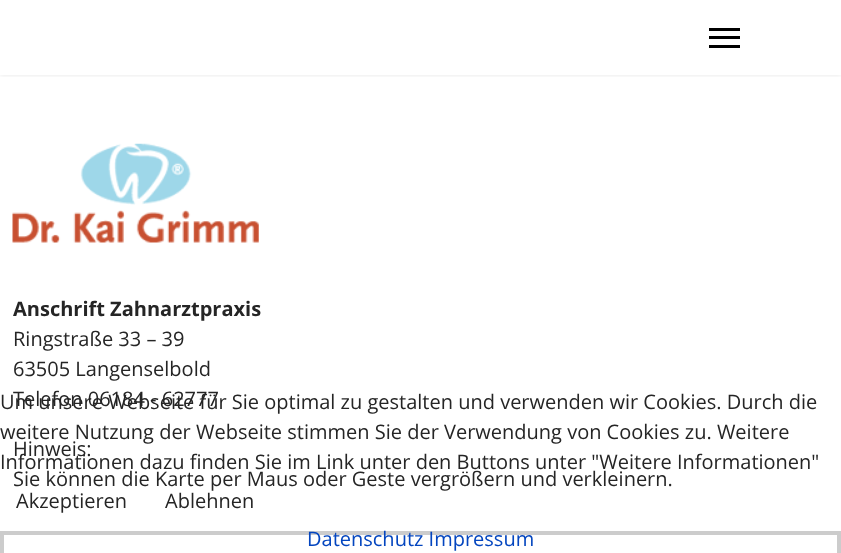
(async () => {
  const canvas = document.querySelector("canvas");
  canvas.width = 841;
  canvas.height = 553;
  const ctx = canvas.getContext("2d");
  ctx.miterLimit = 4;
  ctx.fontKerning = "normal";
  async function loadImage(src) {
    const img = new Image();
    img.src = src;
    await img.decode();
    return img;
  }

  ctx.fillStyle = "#ffffff";
  ctx.fillRect(0, 0, 841, 553);
  ctx.save();
  ctx.beginPath();
  ctx.rect(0, 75, 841, 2);
  ctx.clip();
  ctx.fillStyle = "rgba(0, 0, 0, 0.1)";
  ctx.filter = "blur(2.5px)";
  ctx.beginPath();
  ctx.rect(0, 0, 841, 75);
  ctx.fill();
  ctx.filter = "none";
  ctx.restore();
  for (const [x, y, w, h, color] of [
    [709, 28, 31, 3, "#000000"],
    [709, 36, 31, 3, "#000000"],
    [709, 45, 31, 3, "#000000"],
  ]) {
    ctx.fillStyle = color;
    ctx.fillRect(x, y, w, h);
  }
  ctx.drawImage(await loadImage("img/1.png"), 12, 143, 247, 100);
  ctx.strokeStyle = "#cccccc";
  ctx.lineWidth = 4;
  ctx.strokeRect(2, 533, 837, 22);
  ctx.font = "bold 20px Open Sans";
  ctx.fillStyle = "#252525";
  ctx.fillText("Anschrift Zahnarztpraxis", 13, 316);
  ctx.font = "20px Open Sans";
  for (const [text, x, y] of [
    ["Ringstraße 33 – 39", 13, 346],
    ["63505 Langenselbold", 13, 376],
    ["Telefon 06184 - 62777", 13, 406],
    ["Hinweis:", 13, 456],
    ["Sie können die Karte per Maus oder Geste vergrößern und verkleinern.", 13, 486],
    ["Um unsere Webseite für Sie optimal zu gestalten und verwenden wir Cookies. Durch die", 0, 409],
    ["weitere Nutzung der Webseite stimmen Sie der Verwendung von Cookies zu. Weitere", 0, 439],
    ["Informationen dazu finden Sie im Link unter den Buttons unter \"Weitere Informationen\"", 0, 469],
    ["Akzeptieren", 16, 508],
    ["Ablehnen", 165, 508],
  ]) {
    ctx.fillText(text, x, y);
  }
  ctx.fillStyle = "#0345bf";
  ctx.fillText("Datenschutz Impressum", 307, 546);
})();
